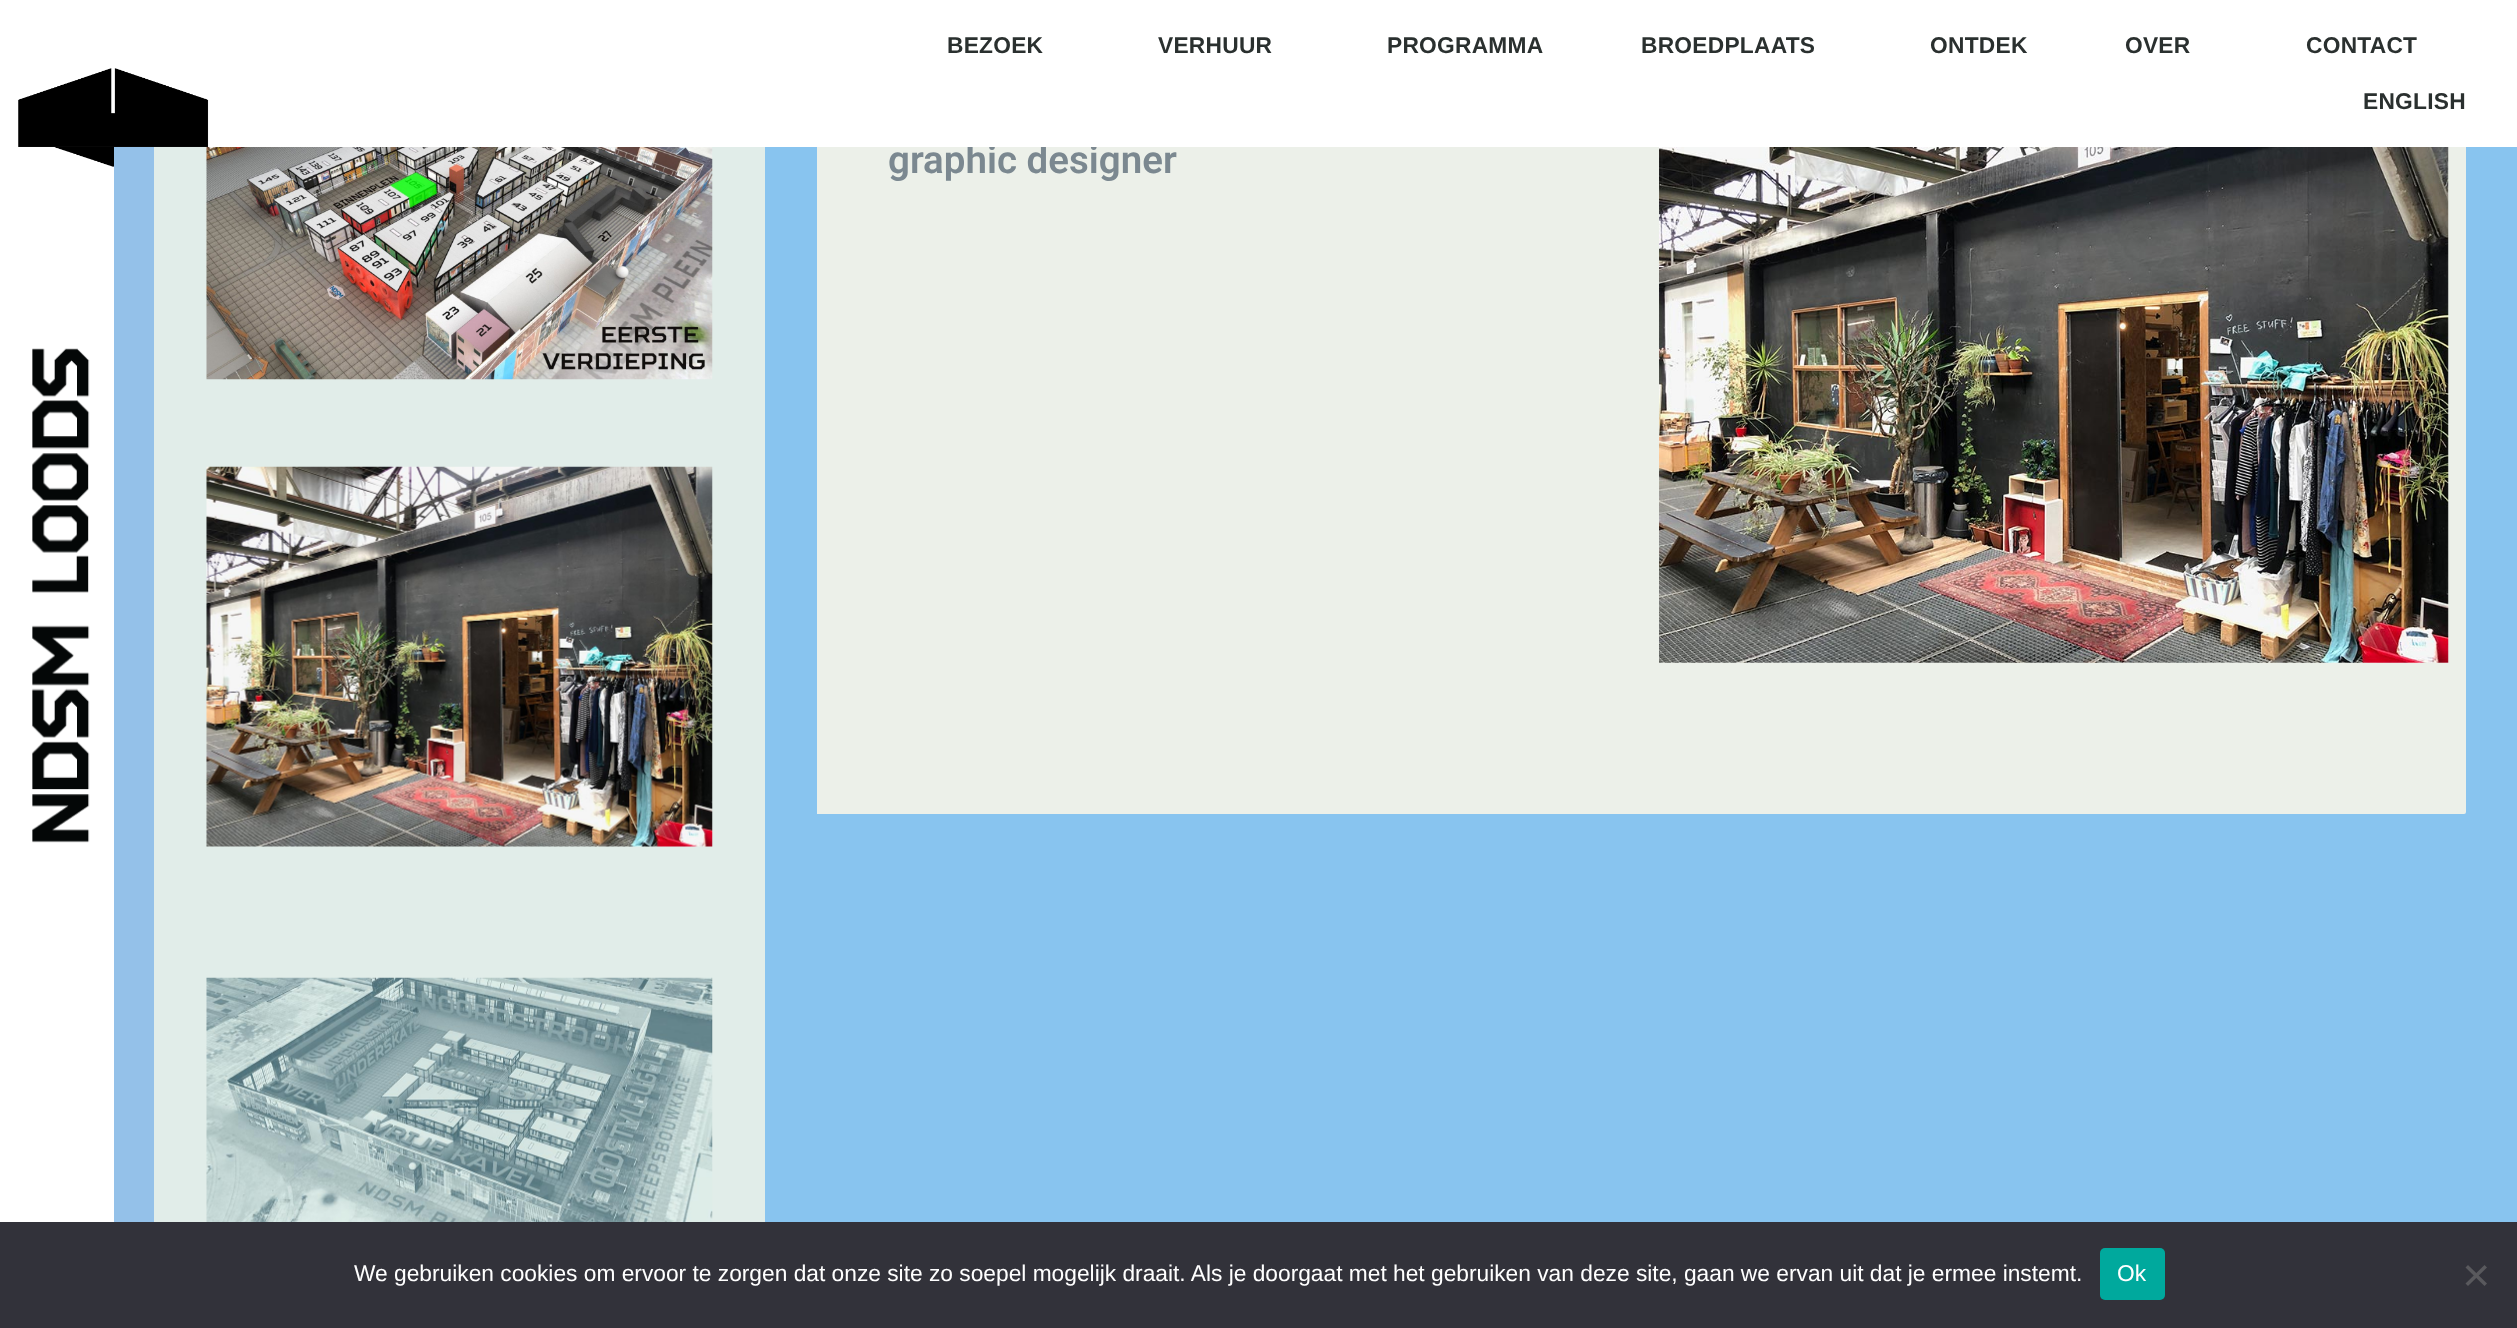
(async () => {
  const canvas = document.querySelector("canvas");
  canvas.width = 2517;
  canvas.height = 1328;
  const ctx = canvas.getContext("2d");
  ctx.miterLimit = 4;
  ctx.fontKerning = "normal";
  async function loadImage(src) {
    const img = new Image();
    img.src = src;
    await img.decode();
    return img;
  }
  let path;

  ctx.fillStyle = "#ffffff";
  ctx.fillRect(0, 0, 2517, 1328);
  ctx.drawImage(await loadImage("img/1.png"), 18, 68, 191, 79);
  ctx.drawImage(await loadImage("img/2.png"), 54, 147, 60, 20);
  ctx.drawImage(await loadImage("img/3.png"), 32, 348, 58, 495);
  ctx.fillStyle = "#e1ede9";
  ctx.fillRect(154, 147, 611, 1075);
  ctx.fillStyle = "#94c1e9";
  ctx.fillRect(114, 147, 40, 1075);
  ctx.drawImage(await loadImage("img/4.png"), 206, 147, 507, 233);
  ctx.drawImage(await loadImage("img/5.png"), 206, 466, 507, 381);
  ctx.drawImage(await loadImage("img/6.png"), 206, 977, 507, 245);
  ctx.fillStyle = "#88c4ef";
  ctx.fillRect(765, 147, 1752, 1075);
  ctx.fillStyle = "#ecf0e9";
  ctx.fillRect(817, 147, 1649, 665);
  ctx.drawImage(await loadImage("img/7.png"), 1659, 147, 790, 516);
  ctx.beginPath();
  ctx.roundRect(817, 812, 1649, 2, [0, 0, 2, 0]);
  ctx.fill();
  ctx.fillStyle = "#32323a";
  ctx.fillRect(0, 1222, 2517, 106);
  ctx.fillStyle = "#00a99d";
  ctx.beginPath();
  ctx.roundRect(2100, 1248, 65, 52, 5);
  ctx.fill();
  ctx.fillStyle = "#59595d";
  path = new Path2D("M2484.5 1265L2487 1267.5L2468 1286L2465.5 1283.5Z");
  ctx.fill(path);
  path = new Path2D("M2465.5 1267.5L2468 1265L2487 1283.5L2484.5 1286Z");
  ctx.fill(path);
  ctx.letterSpacing = "0.25px";
  ctx.font = "bold 22.75px Liberation Sans";
  ctx.fillStyle = "#2a302f";
  for (const [text, x, y] of [
    ["BEZOEK", 947, 53],
    ["VERHUUR", 1158, 53],
    ["PROGRAMMA", 1387, 53],
    ["BROEDPLAATS", 1641, 53],
    ["ONTDEK", 1930, 53],
    ["OVER", 2125, 53],
    ["CONTACT", 2306, 53],
    ["ENGLISH", 2363, 109],
  ]) {
    ctx.fillText(text, x, y);
  }
  ctx.letterSpacing = "0px";
  ctx.font = "600 38.5px Roboto";
  ctx.fillStyle = "#7b8890";
  ctx.fillText("graphic designer", 888, 173);
  ctx.fillStyle = "#ffffff";
  ctx.fillRect(967, 144, 130, 3);
  ctx.font = "22.75px Liberation Sans";
  ctx.fillText("We gebruiken cookies om ervoor te zorgen dat onze site zo soepel mogelijk draait. Als je doorgaat met het gebruiken van deze site, gaan we ervan uit dat je ermee instemt.", 354, 1281);
  ctx.fillText("Ok", 2117, 1281);
})();
